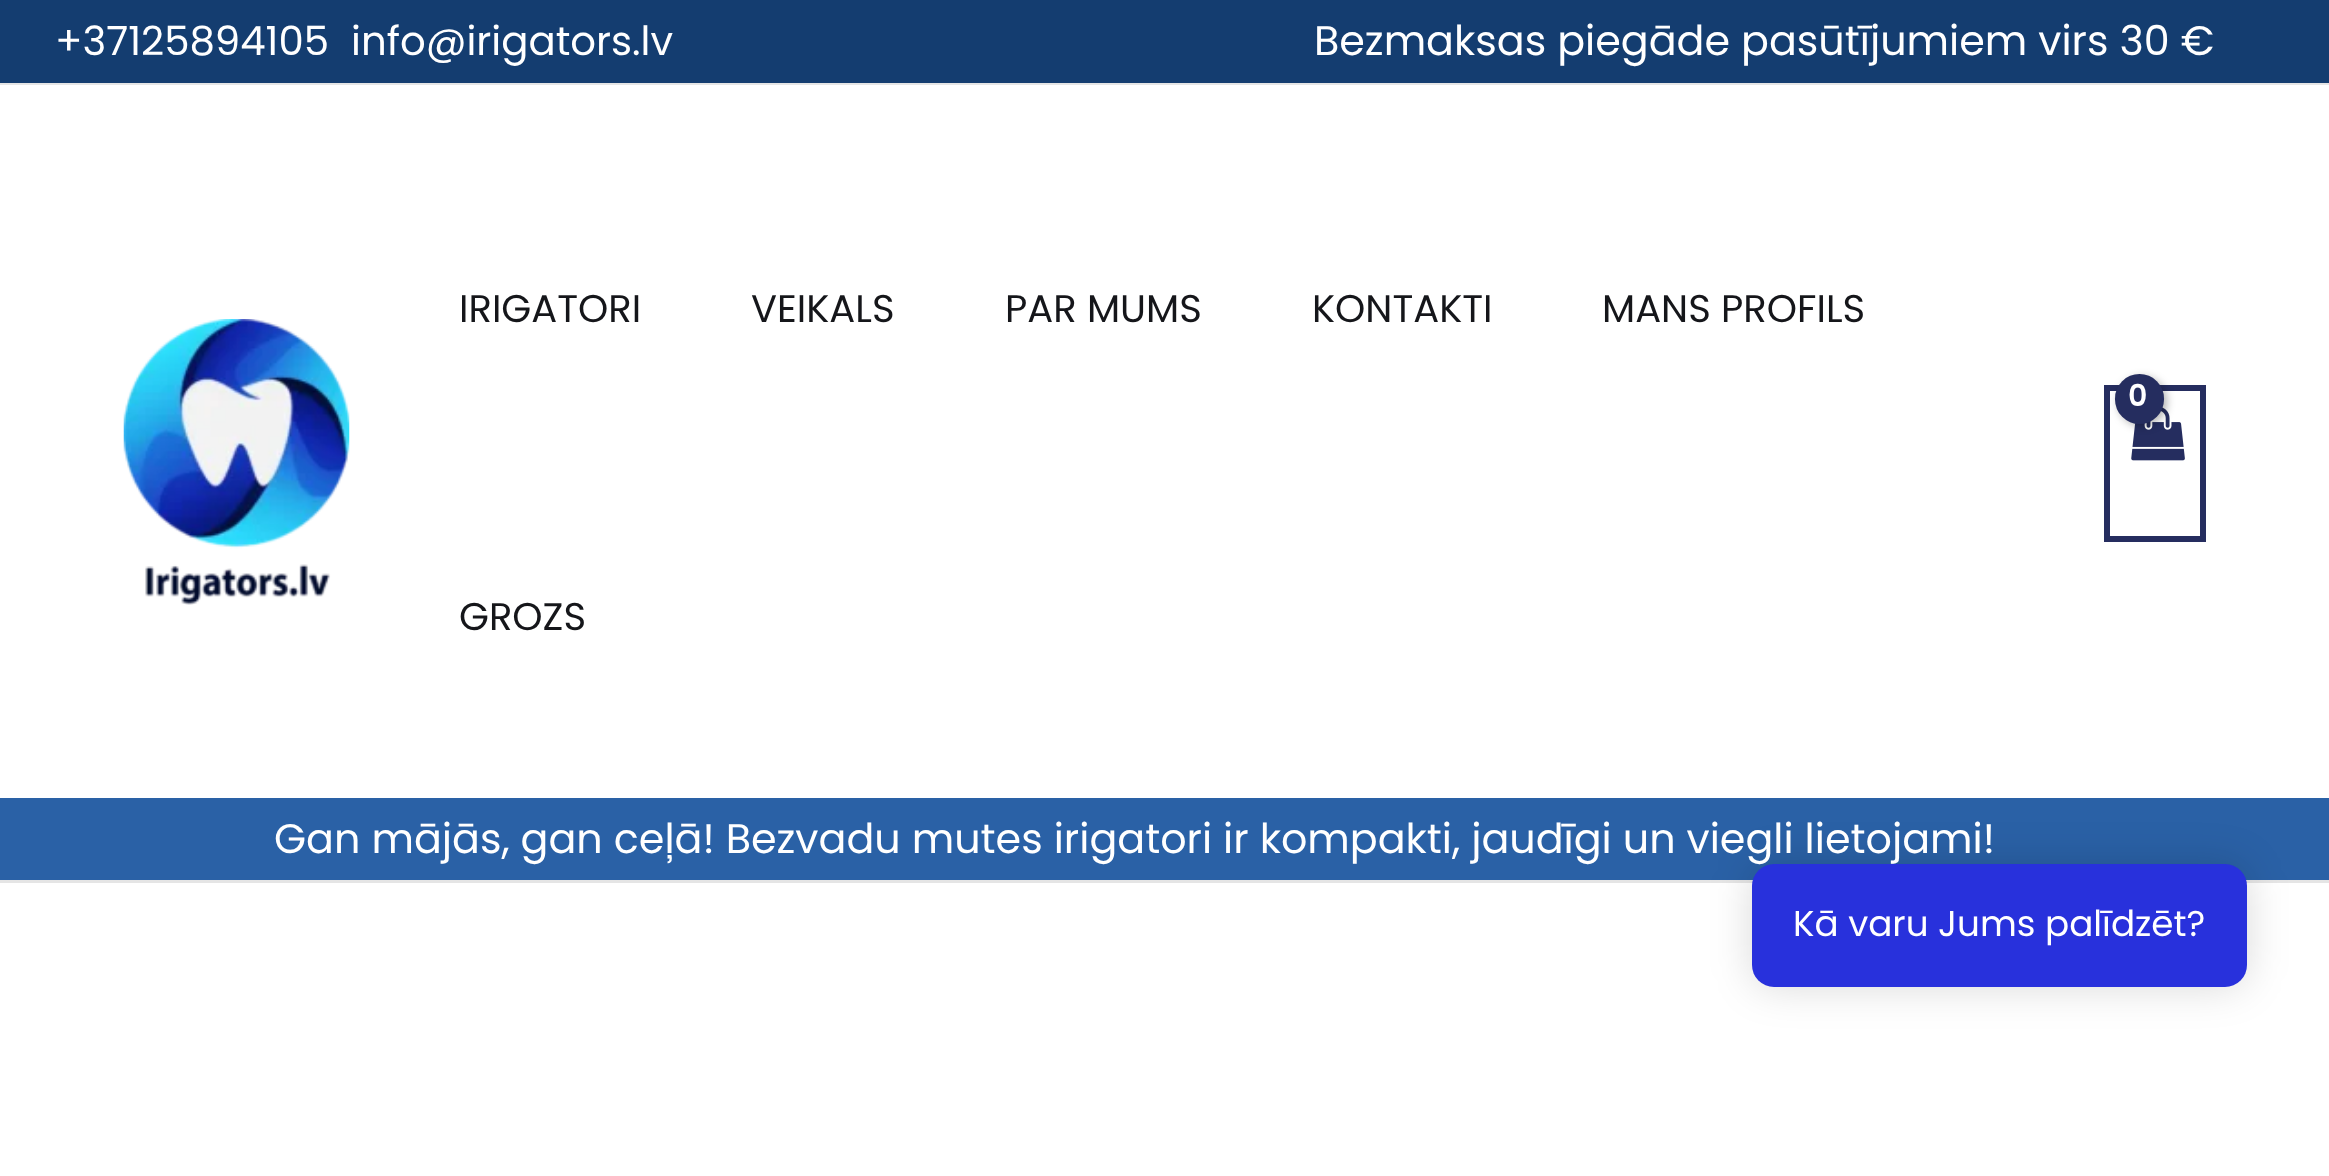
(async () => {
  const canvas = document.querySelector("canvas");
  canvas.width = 2329;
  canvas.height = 1176;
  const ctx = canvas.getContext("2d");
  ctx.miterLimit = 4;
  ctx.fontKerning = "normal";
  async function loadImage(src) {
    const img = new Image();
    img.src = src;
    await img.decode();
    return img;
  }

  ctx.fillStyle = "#ffffff";
  ctx.fillRect(0, 0, 2329, 1176);
  ctx.fillStyle = "#143d70";
  ctx.fillRect(0, 0, 2329, 83);
  ctx.fillStyle = "#e5e5e5";
  ctx.fillRect(0, 83, 2329, 2);
  ctx.drawImage(await loadImage("img/1.png"), 123, 319, 227, 286);
  ctx.strokeStyle = "#252d5f";
  ctx.lineWidth = 6;
  ctx.strokeRect(2107, 388, 96, 151);
  ctx.drawImage(await loadImage("img/2.png"), 2131, 407, 54, 54);
  ctx.fillStyle = "rgba(0, 0, 0, 0.3)";
  ctx.filter = "blur(4px)";
  ctx.beginPath();
  ctx.roundRect(2118, 377, 49, 49, 24.5);
  ctx.fill();
  ctx.filter = "none";
  ctx.fillStyle = "#252d5f";
  ctx.beginPath();
  ctx.roundRect(2115, 374, 49, 50, 24.5);
  ctx.fill();
  ctx.fillStyle = "#2a61a6";
  ctx.fillRect(0, 798, 2329, 82);
  ctx.fillStyle = "#e5e5e5";
  ctx.fillRect(0, 880, 2329, 3);
  ctx.fillStyle = "rgba(0, 0, 0, 0.15)";
  ctx.filter = "blur(20.5px)";
  ctx.beginPath();
  ctx.roundRect(1752, 864, 495, 123, 22);
  ctx.fill();
  ctx.filter = "none";
  ctx.font = "40.25px Poppins";
  ctx.fillStyle = "#ffffff";
  ctx.fillText("+37125894105", 55, 55);
  ctx.fillText("info@irigators.lv", 351, 55);
  ctx.font = "41.25px Poppins";
  ctx.fillText("Bezmaksas piegāde pasūtījumiem virs 30 €", 1314, 55);
  ctx.font = "38.5px Poppins";
  ctx.fillStyle = "#15161a";
  for (const [text, x, y] of [
    ["IRIGATORI", 459, 322],
    ["VEIKALS", 751, 322],
    ["PAR MUMS", 1005, 322],
    ["KONTAKTI", 1312, 322],
    ["MANS PROFILS", 1602, 322],
    ["GROZS", 459, 630],
  ]) {
    ctx.fillText(text, x, y);
  }
  ctx.letterSpacing = "-1px";
  ctx.font = "600 30px Poppins";
  ctx.fillStyle = "#ffffff";
  ctx.fillText("0", 2128, 406);
  ctx.letterSpacing = "0px";
  ctx.font = "41.25px Poppins";
  ctx.fillText("Gan mājās, gan ceļā! Bezvadu mutes irigatori ir kompakti, jaudīgi un viegli lietojami!", 274, 853);
  ctx.fillStyle = "#2831dc";
  ctx.beginPath();
  ctx.roundRect(1752, 864, 495, 123, 22);
  ctx.fill();
  ctx.font = "35.75px Poppins";
  ctx.fillStyle = "#ffffff";
  ctx.fillText("Kā varu Jums palīdzēt?", 1793, 936);
})();
